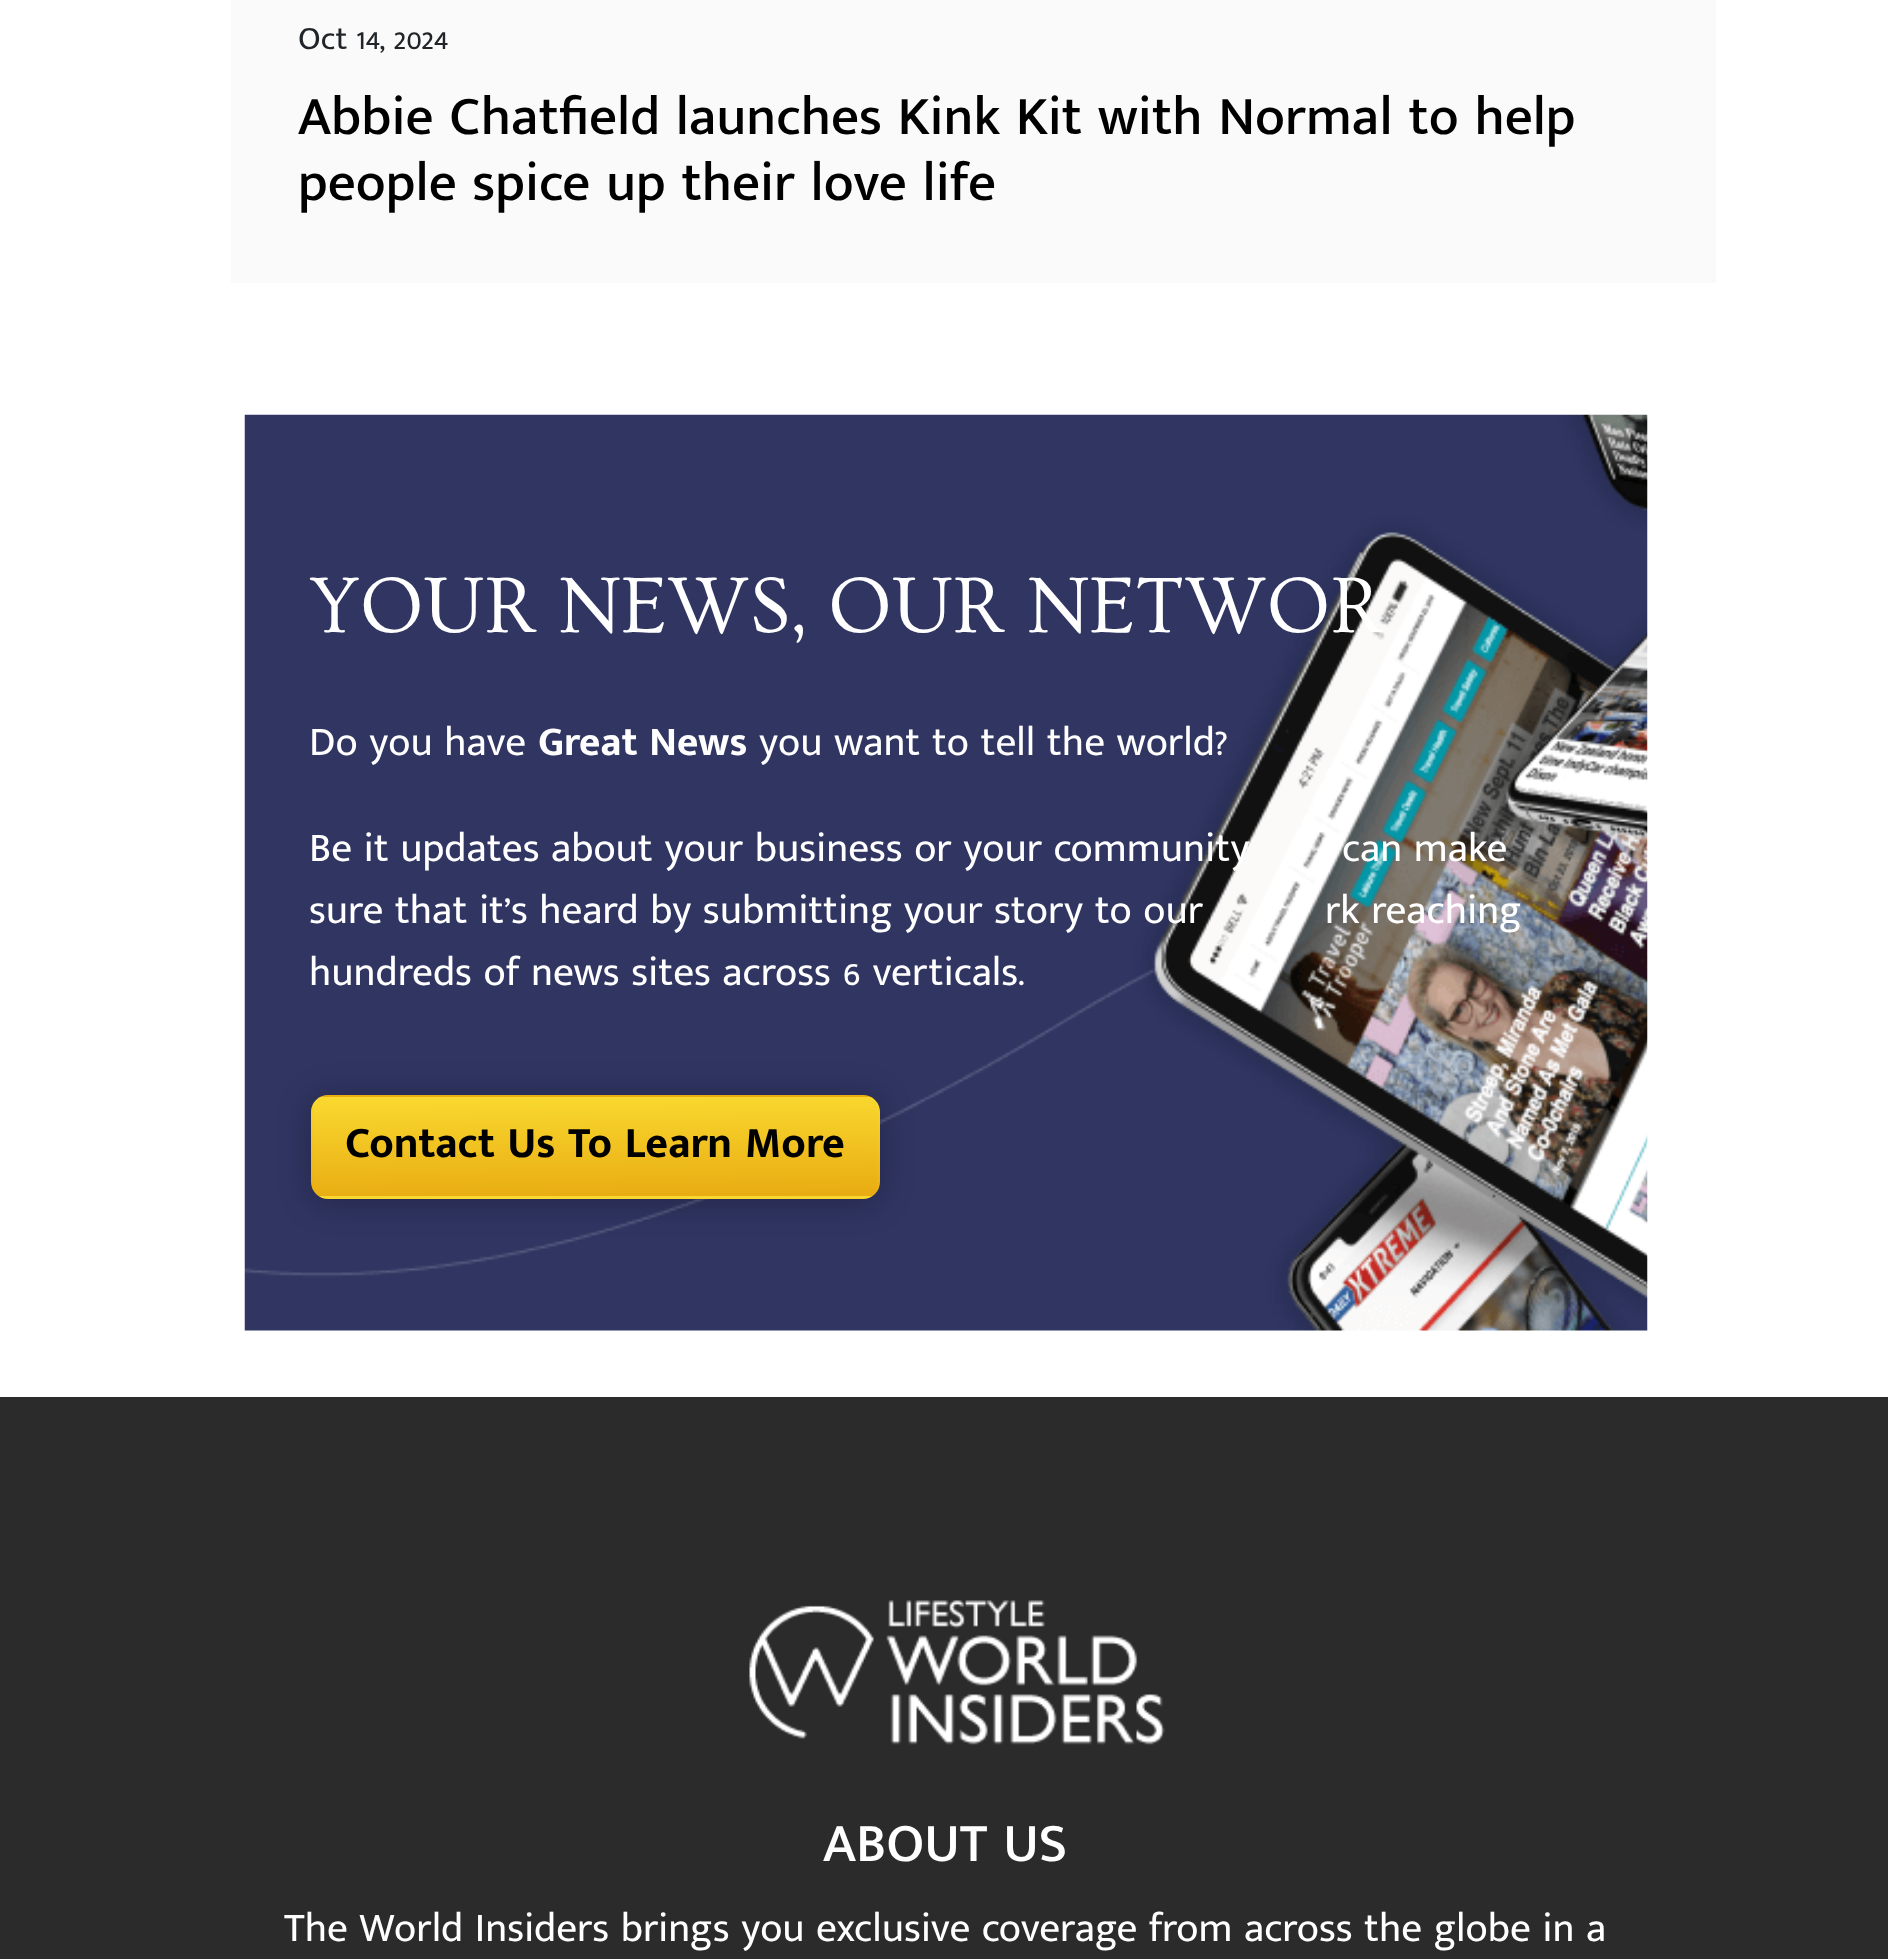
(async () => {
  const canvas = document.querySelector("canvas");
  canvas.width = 1888;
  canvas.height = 1959;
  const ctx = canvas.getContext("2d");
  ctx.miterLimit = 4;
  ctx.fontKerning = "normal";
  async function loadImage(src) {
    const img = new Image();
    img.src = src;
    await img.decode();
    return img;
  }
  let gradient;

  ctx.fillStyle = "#ffffff";
  ctx.fillRect(0, 0, 1888, 1959);
  ctx.fillStyle = "#fafafa";
  ctx.fillRect(231, 0, 1485, 283);
  ctx.drawImage(await loadImage("img/1.png"), 244, 414, 1404, 917);
  ctx.fillStyle = "rgba(0, 0, 0, 0.25)";
  ctx.filter = "blur(16.5px)";
  ctx.beginPath();
  ctx.roundRect(311, 1097, 569, 105, 17);
  ctx.fill();
  ctx.filter = "none";
  ctx.save();
  ctx.beginPath();
  ctx.roundRect(311, 1095, 569, 104, 17);
  ctx.clip();
  gradient = ctx.createLinearGradient(595, 996, 596, 1100);
  gradient.addColorStop(0.02, "#f9d82f");
  gradient.addColorStop(0.96, "#e9ad13");
  ctx.fillStyle = gradient;
  ctx.fillRect(314, 1095, 563, 2);
  gradient = ctx.createLinearGradient(31, 1095, 32, 1199);
  gradient.addColorStop(0.02, "#f9d82f");
  gradient.addColorStop(0.96, "#e9ad13");
  ctx.fillStyle = gradient;
  ctx.fillRect(311, 1097, 3, 99);
  gradient = ctx.createLinearGradient(595, 1095, 596, 1199);
  gradient.addColorStop(0.02, "#f9d82f");
  gradient.addColorStop(0.96, "#e9ad13");
  ctx.fillStyle = gradient;
  ctx.fillRect(314, 1097, 563, 99);
  gradient = ctx.createLinearGradient(1159, 1095, 1160, 1199);
  gradient.addColorStop(0.02, "#f9d82f");
  gradient.addColorStop(0.96, "#e9ad13");
  ctx.fillStyle = gradient;
  ctx.fillRect(877, 1097, 3, 99);
  gradient = ctx.createLinearGradient(595, 1194, 596, 1298);
  gradient.addColorStop(0.02, "#f9d82f");
  gradient.addColorStop(0.96, "#e9ad13");
  ctx.fillStyle = gradient;
  ctx.fillRect(314, 1196, 563, 3);
  ctx.restore();
  ctx.fillStyle = "#2b2b2b";
  ctx.fillRect(0, 1397, 1888, 562);
  ctx.drawImage(await loadImage("img/2.png"), 749, 1600, 416, 145);
  ctx.font = "33px Mukta Malar";
  ctx.fillStyle = "#212529";
  ctx.fillText("Oct 14, 2024", 298, 49);
  ctx.font = "500 55px Mukta Malar";
  ctx.fillStyle = "#000000";
  ctx.fillText("Abbie Chatfield launches Kink Kit with Normal to help", 298, 134);
  ctx.fillText("people spice up their love life", 298, 200);
  ctx.font = "82.5px Ovo";
  ctx.fillStyle = "#ffffff";
  ctx.fillText("YOUR NEWS, OUR NETWOR", 309, 632);
  ctx.font = "41.25px Mukta Malar";
  ctx.fillText("Do you have", 309, 755);
  ctx.font = "bold 41.25px Mukta Malar";
  ctx.fillText("Great News", 538, 755);
  ctx.font = "41.25px Mukta Malar";
  for (const [text, x, y] of [
    ["you want to tell the world?", 759, 755],
    ["Be it updates about your business or your community", 309, 861],
    ["can make", 1342, 861],
    ["sure that it’s heard by submitting your story to our", 309, 923],
    ["rk reaching", 1325, 923],
    ["hundreds of news sites across 6 verticals.", 309, 985],
  ]) {
    ctx.fillText(text, x, y);
  }
  ctx.font = "bold 44px Mukta Malar";
  ctx.fillStyle = "#000000";
  ctx.fillText("Contact Us To Learn More", 345, 1157);
  ctx.font = "500 55px Mukta Malar";
  ctx.fillStyle = "#ffffff";
  ctx.fillText("ABOUT US", 823, 1861);
  ctx.font = "41.25px Mukta Malar";
  ctx.fillText("The World Insiders brings you exclusive coverage from across the globe in a", 284, 1941);
})();
